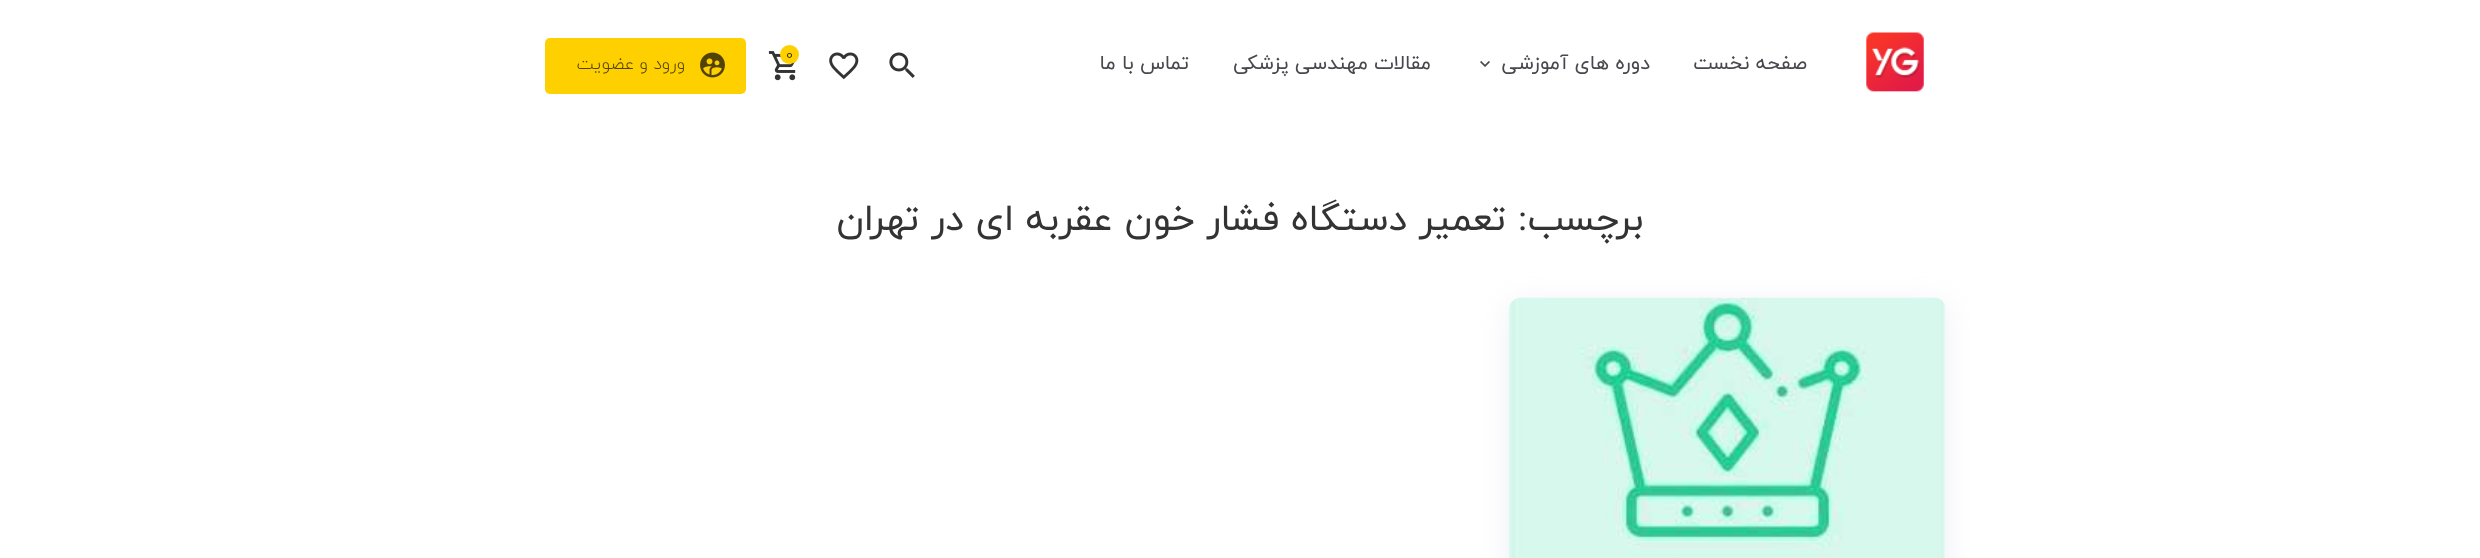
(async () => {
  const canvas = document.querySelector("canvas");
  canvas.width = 2480;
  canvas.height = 558;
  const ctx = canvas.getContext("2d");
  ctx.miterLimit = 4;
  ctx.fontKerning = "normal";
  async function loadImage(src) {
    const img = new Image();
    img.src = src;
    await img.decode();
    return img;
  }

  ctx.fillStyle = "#ffffff";
  ctx.fillRect(0, 0, 2480, 558);
  ctx.drawImage(await loadImage("img/1.png"), 1866, 32, 58, 60);
  ctx.drawImage(await loadImage("img/2.png"), 1480, 61, 10, 6);
  ctx.drawImage(await loadImage("img/3.png"), 889, 52, 26, 26);
  ctx.drawImage(await loadImage("img/4.png"), 829, 52, 30, 28);
  ctx.drawImage(await loadImage("img/5.png"), 768, 51, 31, 30);
  ctx.fillStyle = "#ffd000";
  ctx.beginPath();
  ctx.arc(789.5, 54.5, 9.5, 0, Math.PI * 2);
  ctx.fill();
  ctx.beginPath();
  ctx.roundRect(545, 38, 201, 56, 5);
  ctx.fill();
  ctx.drawImage(await loadImage("img/6.png"), 700, 52, 25, 26);
  ctx.fillStyle = "rgba(188, 194, 221, 0.24)";
  ctx.filter = "blur(15.5px)";
  ctx.beginPath();
  ctx.roundRect(1509, 304, 437, 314, 13);
  ctx.fill();
  ctx.filter = "none";
  ctx.drawImage(await loadImage("img/7.png"), 1509, 297, 437, 261);
  ctx.direction = "rtl";
  ctx.font = "20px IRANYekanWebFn";
  ctx.fillStyle = "#46484d";
  for (const [text, x, y] of [
    ["صفحه نخست", 1807, 69],
    ["دوره های آموزشی", 1650, 69],
    ["مقالات مهندسی پزشکی", 1431, 69],
    ["تماس با ما", 1189, 69],
  ]) {
    ctx.fillText(text, x, y);
  }
  ctx.direction = "ltr";
  ctx.font = "300 14px IRANYekanWebFn";
  ctx.fillStyle = "#000000";
  ctx.fillText("0", 786, 59);
  ctx.direction = "rtl";
  ctx.font = "300 17.5px IRANYekanWebFn";
  ctx.fillStyle = "#514306";
  ctx.fillText("ورود و عضویت", 685, 69);
  ctx.font = "37.5px IRANYekanWebFn";
  ctx.fillStyle = "#333333";
  ctx.fillText("برچسب:", 1643, 230);
  ctx.fillText("تعمیر دستگاه فشار خون عقربه ای در تهران", 1506, 230);
})();
